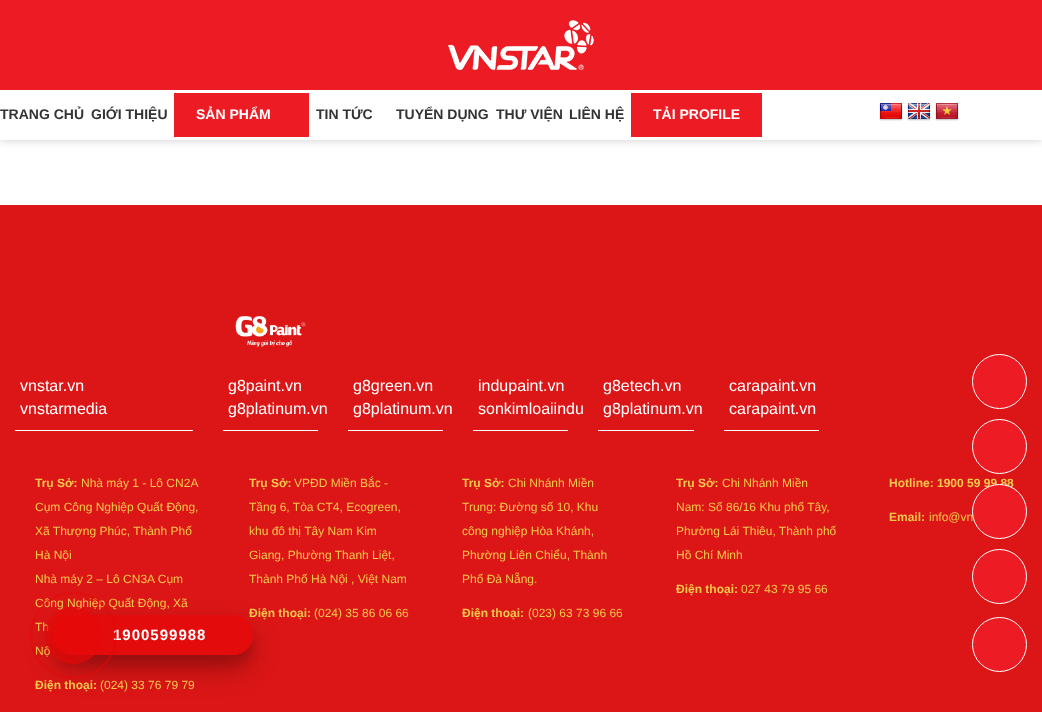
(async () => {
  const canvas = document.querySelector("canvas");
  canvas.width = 1042;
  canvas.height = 712;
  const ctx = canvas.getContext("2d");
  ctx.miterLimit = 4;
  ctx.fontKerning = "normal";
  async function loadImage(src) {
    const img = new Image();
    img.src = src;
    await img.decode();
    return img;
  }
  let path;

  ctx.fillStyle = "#ffffff";
  ctx.fillRect(0, 0, 1042, 712);
  ctx.fillStyle = "rgba(0, 0, 0, 0.2)";
  ctx.filter = "blur(5px)";
  ctx.beginPath();
  ctx.rect(0, 0, 1042, 140);
  ctx.fill();
  ctx.filter = "none";
  ctx.fillStyle = "#ed1c24";
  ctx.fillRect(0, 0, 1042, 90);
  ctx.drawImage(await loadImage("img/1.png"), 448, 20, 146, 50);
  for (const [x, y, w, h, color] of [
    [0, 90, 1042, 50, "#ffffff"],
    [174, 93, 135, 44, "#ed1c24"],
    [631, 93, 131, 44, "#ed1c24"],
  ]) {
    ctx.fillStyle = color;
    ctx.fillRect(x, y, w, h);
  }
  ctx.drawImage(await loadImage("img/2.png"), 879, 103, 24, 18);
  ctx.drawImage(await loadImage("img/3.png"), 907, 103, 24, 18);
  ctx.drawImage(await loadImage("img/4.png"), 935, 103, 24, 18);
  ctx.fillStyle = "#dc1616";
  ctx.fillRect(0, 205, 1042, 507);
  ctx.fillStyle = "#ed1c24";
  ctx.beginPath();
  ctx.arc(999.5, 381.5, 27, 0, Math.PI * 2);
  ctx.fill();
  ctx.strokeStyle = "#ffffff";
  ctx.stroke();
  ctx.beginPath();
  ctx.arc(999.5, 446.5, 27, 0, Math.PI * 2);
  ctx.fill();
  ctx.stroke();
  ctx.beginPath();
  ctx.arc(999.5, 576.5, 27, 0, Math.PI * 2);
  ctx.fill();
  ctx.stroke();
  ctx.fillStyle = "#ffffff";
  ctx.fillRect(15, 430, 178, 1);
  ctx.drawImage(await loadImage("img/5.png"), 235, 316, 71, 31);
  for (const [x, y, w, h, color] of [
    [223, 430, 95, 1, "#ffffff"],
    [348, 430, 95, 1, "#ffffff"],
    [473, 430, 95, 1, "#ffffff"],
    [598, 430, 96, 1, "#ffffff"],
    [724, 430, 95, 1, "#ffffff"],
  ]) {
    ctx.fillStyle = color;
    ctx.fillRect(x, y, w, h);
  }
  ctx.save();
  path = new Path2D("M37 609H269V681H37ZM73 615H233C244 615 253 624 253 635C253 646 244 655 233 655H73C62 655 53 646 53 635C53 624 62 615 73 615Z");
  ctx.clip(path, "evenodd");
  ctx.fillStyle = "rgba(0, 0, 0, 0.1)";
  ctx.filter = "blur(5px)";
  ctx.beginPath();
  ctx.roundRect(53, 625, 200, 40, 20);
  ctx.fill();
  ctx.filter = "none";
  ctx.restore();
  ctx.save();
  path = new Path2D("M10 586H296V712H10ZM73 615H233C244 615 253 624 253 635C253 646 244 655 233 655H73C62 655 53 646 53 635C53 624 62 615 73 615Z");
  ctx.clip(path, "evenodd");
  ctx.fillStyle = "rgba(0, 0, 0, 0.25)";
  ctx.filter = "blur(14px)";
  ctx.beginPath();
  ctx.roundRect(53, 629, 200, 40, 20);
  ctx.fill();
  ctx.filter = "none";
  ctx.restore();
  ctx.fillStyle = "#ed1c24";
  ctx.beginPath();
  ctx.arc(999.5, 644.5, 27, 0, Math.PI * 2);
  ctx.fill();
  ctx.stroke();
  ctx.font = "bold 14px Liberation Sans";
  ctx.fillStyle = "#333333";
  ctx.fillText("TRANG CHỦ", 0, 119);
  ctx.fillText("GIỚI THIỆU", 91, 119);
  ctx.fillStyle = "#ffffff";
  ctx.fillText("SẢN PHẨM", 196, 119);
  ctx.fillStyle = "#333333";
  for (const [text, x, y] of [
    ["TIN TỨC", 316, 119],
    ["TUYỂN DỤNG", 396, 119],
    ["THƯ VIỆN", 496, 119],
    ["LIÊN HỆ", 569, 119],
  ]) {
    ctx.fillText(text, x, y);
  }
  ctx.fillStyle = "#ffffff";
  ctx.fillText("TẢI PROFILE", 653, 119);
  ctx.font = "16px Liberation Sans";
  for (const [text, x, y] of [
    ["vnstar.vn", 20, 391],
    ["vnstarmedia", 20, 414],
    ["g8paint.vn", 228, 391],
    ["g8platinum.vn", 228, 414],
    ["g8green.vn", 353, 391],
    ["g8platinum.vn", 353, 414],
    ["indupaint.vn", 478, 391],
    ["sonkimloaiindu", 478, 414],
    ["g8etech.vn", 603, 391],
    ["g8platinum.vn", 603, 414],
    ["carapaint.vn", 729, 391],
    ["carapaint.vn", 729, 414],
  ]) {
    ctx.fillText(text, x, y);
  }
  ctx.font = "bold 12px Liberation Sans";
  ctx.fillStyle = "#f2c94c";
  ctx.fillText("Trụ Sở:", 35, 487);
  ctx.font = "12px Liberation Sans";
  for (const [text, x, y] of [
    ["Nhà máy 1 - Lô CN2A", 81, 487],
    ["Cụm Công Nghiệp Quất Động,", 35, 511],
    ["Xã Thượng Phúc, Thành Phố", 35, 535],
    ["Hà Nội", 35, 559],
    ["Nhà máy 2 – Lô CN3A Cụm", 35, 583],
    ["Công Nghiệp Quất Động, Xã", 35, 607],
    ["Th", 35, 631],
    ["Nộ", 35, 655],
  ]) {
    ctx.fillText(text, x, y);
  }
  ctx.font = "bold 12px Liberation Sans";
  ctx.fillText("Điện thoại:", 35, 689);
  ctx.font = "12px Liberation Sans";
  ctx.fillText("(024) 33 76 79 79", 100, 689);
  ctx.font = "bold 12px Liberation Sans";
  ctx.fillText("Trụ Sở:", 249, 487);
  ctx.font = "12px Liberation Sans";
  for (const [text, x, y] of [
    ["VPĐD Miền Bắc -", 294, 487],
    ["Tầng 6, Tòa CT4, Ecogreen,", 249, 511],
    ["khu đô thị Tây Nam Kim", 249, 535],
    ["Giang, Phường Thanh Liệt,", 249, 559],
    ["Thành Phố Hà Nội , Việt Nam", 249, 583],
  ]) {
    ctx.fillText(text, x, y);
  }
  ctx.font = "bold 12px Liberation Sans";
  ctx.fillText("Điện thoại:", 249, 617);
  ctx.font = "12px Liberation Sans";
  ctx.fillText("(024) 35 86 06 66", 314, 617);
  ctx.font = "bold 12px Liberation Sans";
  ctx.fillText("Trụ Sở:", 462, 487);
  ctx.font = "12px Liberation Sans";
  for (const [text, x, y] of [
    ["Chi Nhánh Miền", 508, 487],
    ["Trung: Đường số 10, Khu", 462, 511],
    ["công nghiệp Hòa Khánh,", 462, 535],
    ["Phường Liên Chiểu, Thành", 462, 559],
    ["Phố Đà Nẵng.", 462, 583],
  ]) {
    ctx.fillText(text, x, y);
  }
  ctx.font = "bold 12px Liberation Sans";
  ctx.fillText("Điện thoại:", 462, 617);
  ctx.font = "12px Liberation Sans";
  ctx.fillText("(023) 63 73 96 66", 528, 617);
  ctx.font = "bold 12px Liberation Sans";
  ctx.fillText("Trụ Sở:", 676, 487);
  ctx.font = "12px Liberation Sans";
  for (const [text, x, y] of [
    ["Chi Nhánh Miền", 722, 487],
    ["Nam: Số 86/16 Khu phố Tây,", 676, 511],
    ["Phường Lái Thiêu, Thành phố", 676, 535],
    ["Hồ Chí Minh", 676, 559],
  ]) {
    ctx.fillText(text, x, y);
  }
  ctx.font = "bold 12px Liberation Sans";
  ctx.fillText("Điện thoại:", 676, 593);
  ctx.font = "12px Liberation Sans";
  ctx.fillText("027 43 79 95 66", 741, 593);
  ctx.font = "bold 12px Liberation Sans";
  ctx.fillText("Hotline: 1900 59 99 88", 889, 487);
  ctx.fillText("Email:", 889, 521);
  ctx.font = "12px Liberation Sans";
  ctx.fillText("info@vn", 929, 521);
  ctx.fillStyle = "#ed1c24";
  ctx.beginPath();
  ctx.arc(999.5, 511.5, 27, 0, Math.PI * 2);
  ctx.fill();
  ctx.stroke();
  ctx.fillStyle = "rgba(230, 8, 8, 0.75)";
  ctx.beginPath();
  ctx.roundRect(53, 615, 200, 40, 20);
  ctx.fill();
  ctx.letterSpacing = "1px";
  ctx.font = "bold 15px Liberation Sans";
  ctx.fillStyle = "#ffffff";
  ctx.fillText("1900599988", 113, 640);
  ctx.beginPath();
  ctx.arc(73.5, 635.5, 42.5, 0, Math.PI * 2);
  ctx.strokeStyle = "rgba(230, 8, 8, 0.5)";
  ctx.lineWidth = 2;
  ctx.stroke();
  ctx.fillStyle = "rgba(230, 8, 8, 0.7)";
  ctx.beginPath();
  ctx.arc(73.5, 635.5, 28.5, 0, Math.PI * 2);
  ctx.fill();
})();
